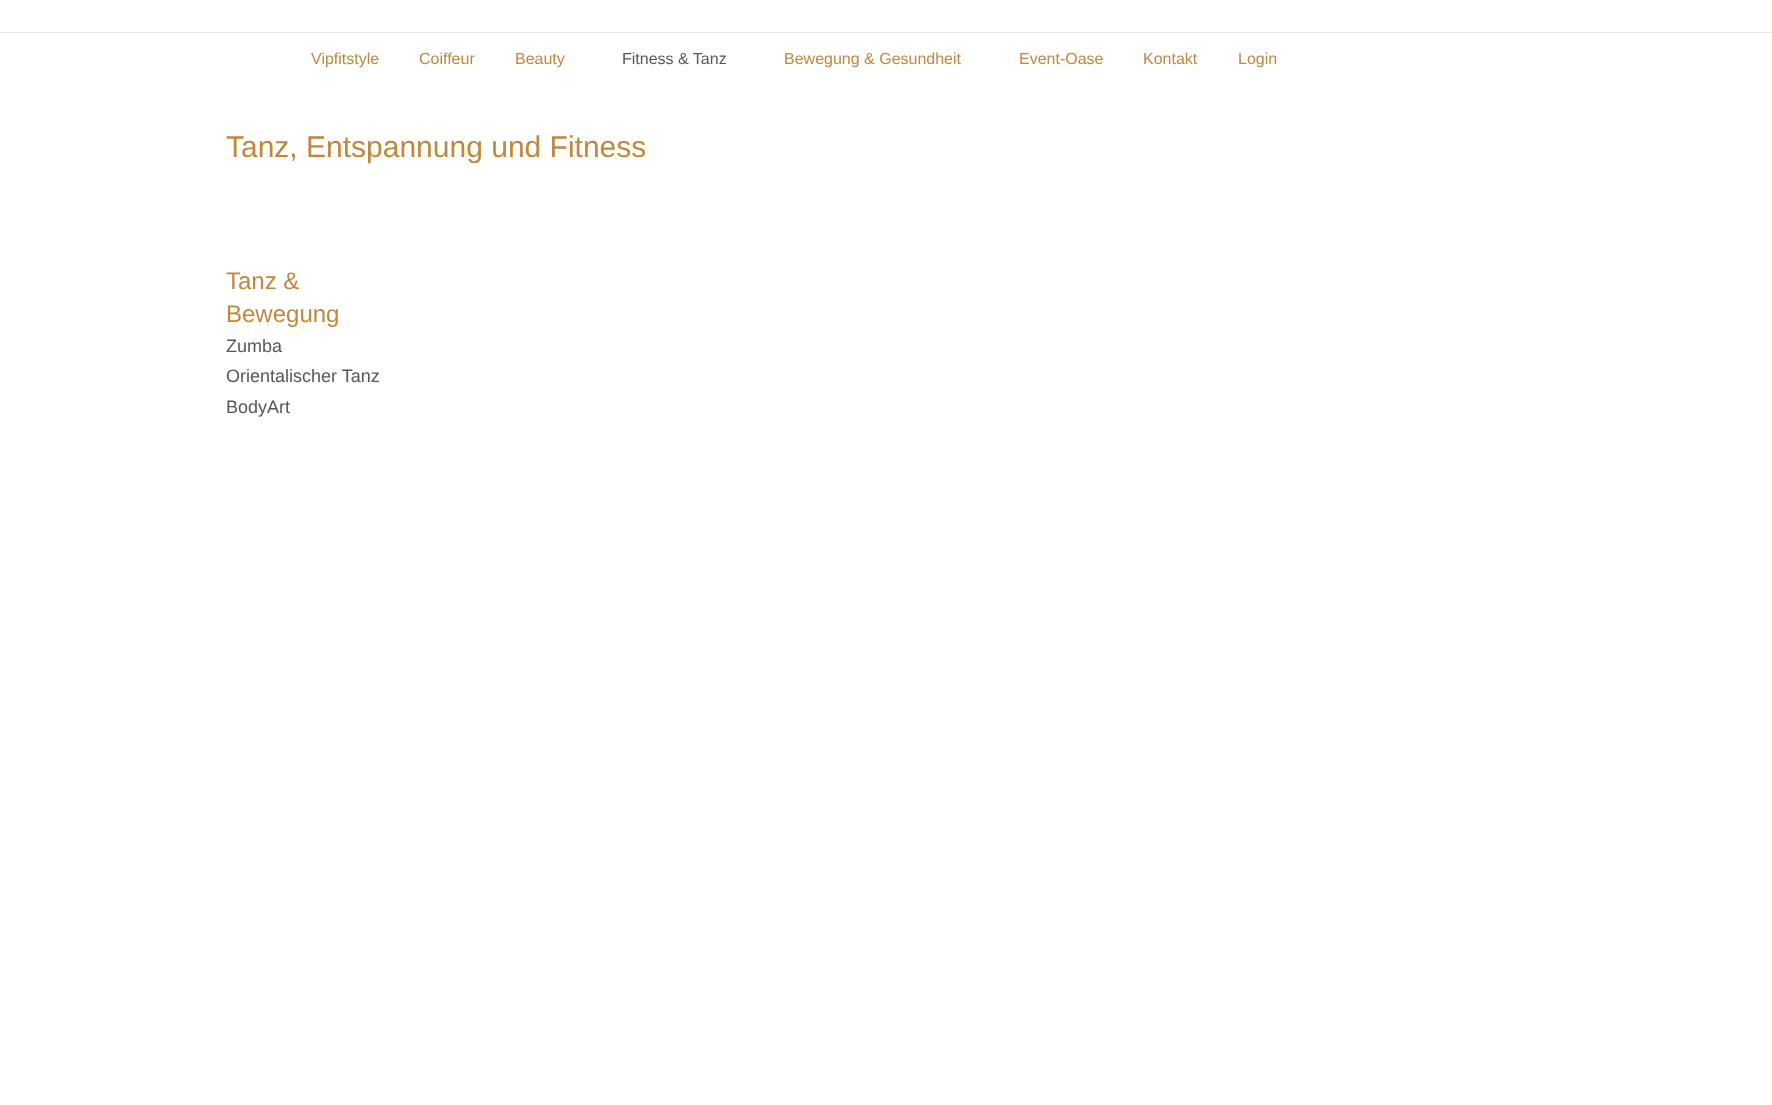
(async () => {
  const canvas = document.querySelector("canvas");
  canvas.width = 1772;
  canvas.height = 1105;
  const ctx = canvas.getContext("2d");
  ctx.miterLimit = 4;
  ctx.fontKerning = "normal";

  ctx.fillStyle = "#ffffff";
  ctx.fillRect(0, 0, 1772, 1105);
  ctx.fillStyle = "#e6e6e6";
  ctx.fillRect(0, 32, 1772, 1);
  ctx.font = "16px Liberation Sans";
  ctx.fillStyle = "#be893b";
  for (const [text, x, y] of [
    ["Vipfitstyle", 311, 64],
    ["Coiffeur", 419, 64],
    ["Beauty", 515, 64],
  ]) {
    ctx.fillText(text, x, y);
  }
  ctx.fillStyle = "#575756";
  ctx.fillText("Fitness & Tanz", 622, 64);
  ctx.fillStyle = "#be893b";
  for (const [text, x, y] of [
    ["Bewegung & Gesundheit", 784, 64],
    ["Event-Oase", 1019, 64],
    ["Kontakt", 1143, 64],
    ["Login", 1238, 64],
  ]) {
    ctx.fillText(text, x, y);
  }
  ctx.font = "30px Liberation Sans";
  ctx.fillText("Tanz, Entspannung und Fitness", 226, 157);
  ctx.font = "24px Liberation Sans";
  ctx.fillText("Tanz &", 226, 289);
  ctx.fillText("Bewegung", 226, 322);
  ctx.font = "18px Liberation Sans";
  ctx.fillStyle = "#575756";
  for (const [text, x, y] of [
    ["Zumba", 226, 352],
    ["Orientalischer Tanz", 226, 382],
    ["BodyArt", 226, 413],
  ]) {
    ctx.fillText(text, x, y);
  }
})();
